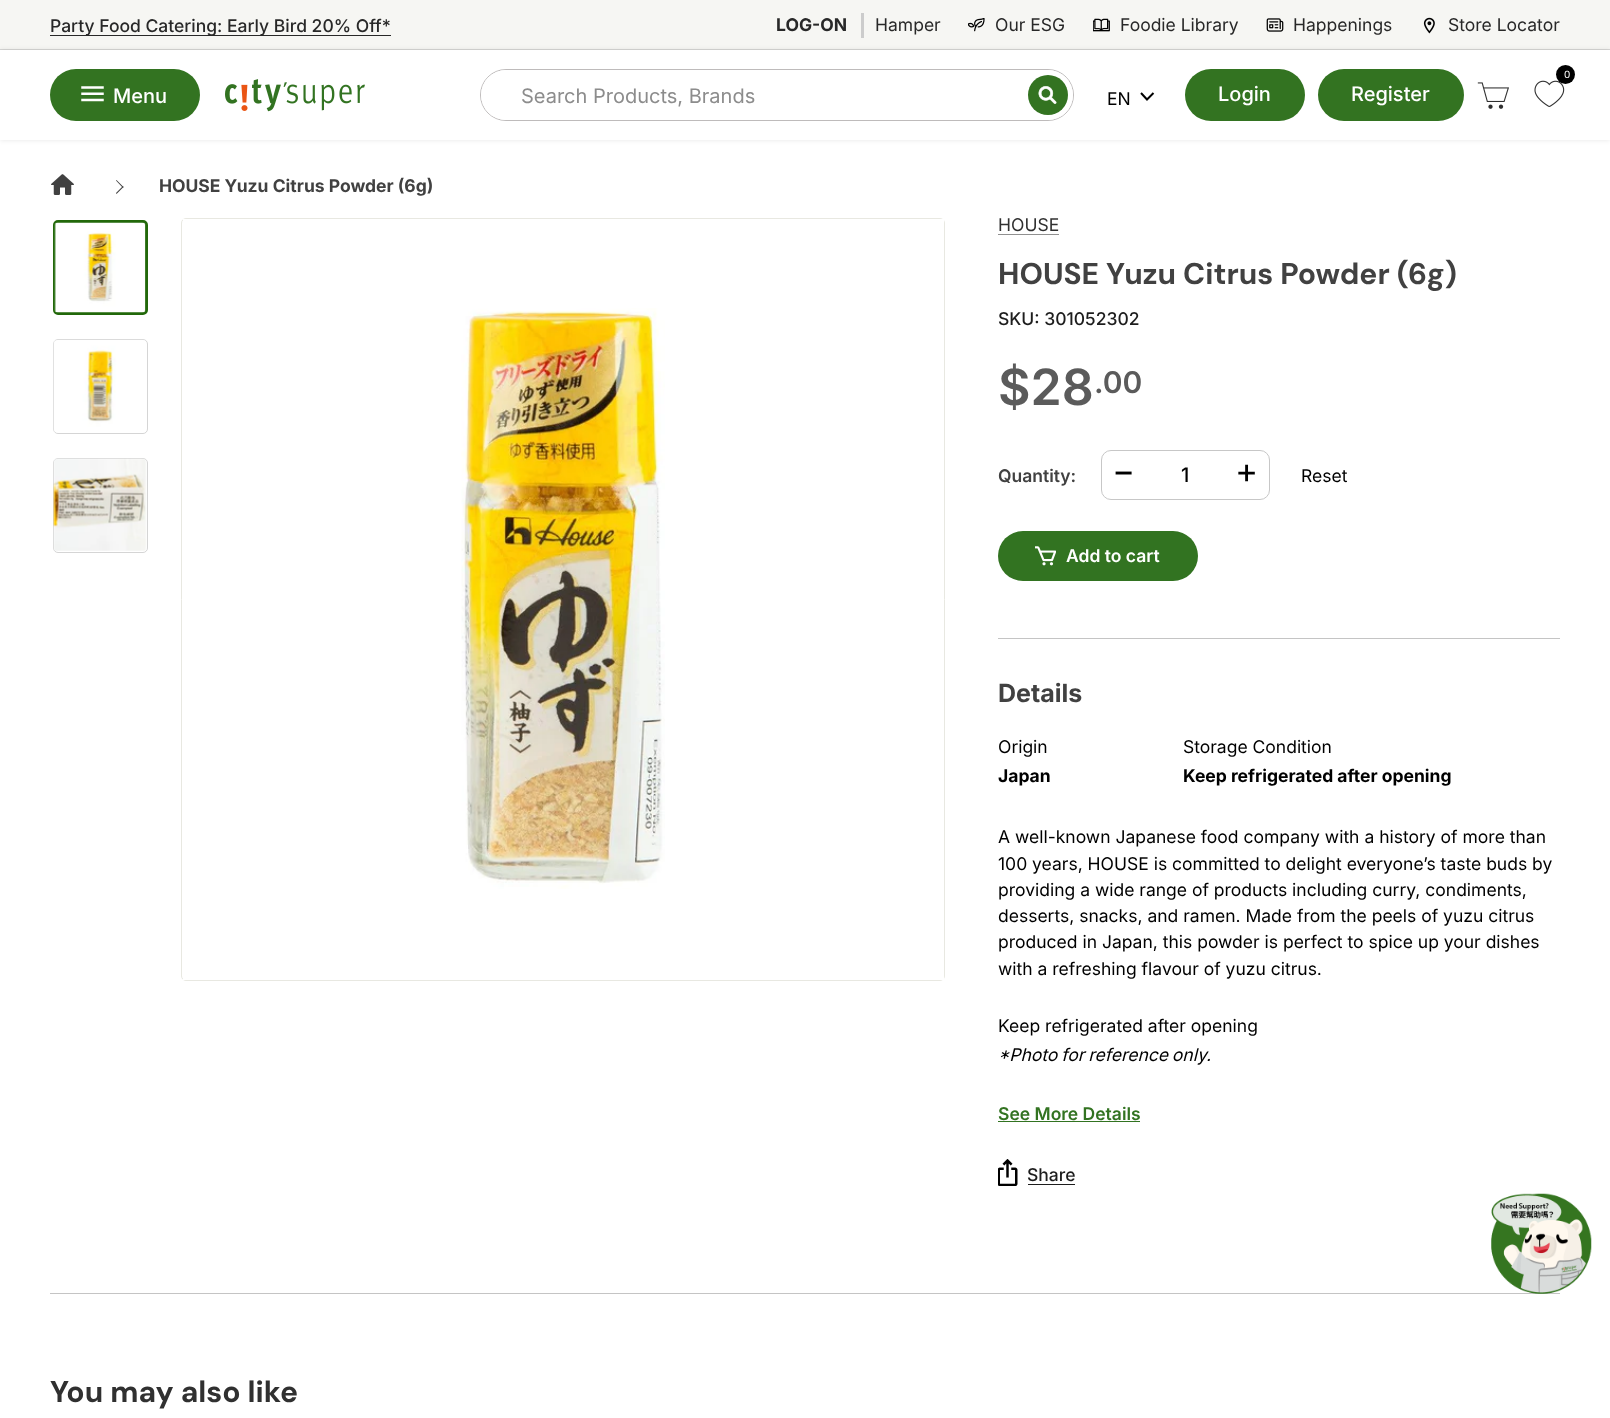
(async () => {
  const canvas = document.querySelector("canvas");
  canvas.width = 1610;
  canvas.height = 1418;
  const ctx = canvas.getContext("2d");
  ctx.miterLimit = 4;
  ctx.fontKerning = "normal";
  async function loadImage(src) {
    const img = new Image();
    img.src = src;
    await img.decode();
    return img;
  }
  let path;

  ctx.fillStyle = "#ffffff";
  ctx.fillRect(0, 0, 1610, 1418);
  for (const [x, y, w, h, color] of [
    [0, 0, 1610, 49, "#f6f6f3"],
    [50, 35, 341, 1, "#282828"],
    [861, 13, 3, 25, "#cccccc"],
  ]) {
    ctx.fillStyle = color;
    ctx.fillRect(x, y, w, h);
  }
  ctx.drawImage(await loadImage("img/1.png"), 968, 18, 17, 14);
  ctx.drawImage(await loadImage("img/2.png"), 1093, 18, 17, 14);
  ctx.drawImage(await loadImage("img/3.png"), 1266, 18, 18, 14);
  ctx.drawImage(await loadImage("img/4.png"), 1423, 17, 12, 17);
  ctx.fillStyle = "#d7d7d5";
  ctx.fillRect(0, 49, 1610, 1);
  ctx.fillStyle = "rgba(0, 0, 0, 0.1)";
  ctx.filter = "blur(2.5px)";
  ctx.beginPath();
  ctx.rect(0, 50, 1610, 90);
  ctx.fill();
  ctx.filter = "none";
  ctx.fillStyle = "#ffffff";
  ctx.fillRect(0, 50, 1610, 90);
  ctx.fillStyle = "#337321";
  ctx.beginPath();
  ctx.roundRect(50, 69, 150, 52, 26);
  ctx.fill();
  ctx.drawImage(await loadImage("img/5.png"), 81, 86, 23, 16);
  ctx.drawImage(await loadImage("img/6.png"), 225, 79, 140, 33);
  ctx.beginPath();
  ctx.roundRect(480.5, 69.5, 593, 51, 25.5);
  ctx.strokeStyle = "#bebbbb";
  ctx.stroke();
  ctx.fillStyle = "#ffffff";
  ctx.beginPath();
  ctx.roundRect(481, 70, 592, 50, 25);
  ctx.fill();
  ctx.fillStyle = "#337321";
  ctx.beginPath();
  ctx.arc(1048, 95, 20, 0, Math.PI * 2);
  ctx.fill();
  ctx.drawImage(await loadImage("img/7.png"), 1038, 86, 19, 18);
  ctx.drawImage(await loadImage("img/8.png"), 1534, 80, 31, 27);
  ctx.fillStyle = "#000000";
  ctx.beginPath();
  ctx.arc(1565.5, 74.5, 9.5, 0, Math.PI * 2);
  ctx.fill();
  path = new Path2D("M1141 93L1147 99.5L1153.5 93");
  ctx.strokeStyle = "#000000";
  ctx.lineWidth = 2;
  ctx.stroke(path);
  ctx.fillStyle = "#337321";
  ctx.beginPath();
  ctx.roundRect(1185, 69, 120, 52, 26);
  ctx.fill();
  ctx.beginPath();
  ctx.roundRect(1318, 69, 146, 52, 26);
  ctx.fill();
  ctx.drawImage(await loadImage("img/9.png"), 1477, 82, 32, 27);
  ctx.drawImage(await loadImage("img/10.png"), 51, 174, 23, 21);
  ctx.fillStyle = "#414141";
  path = new Path2D("M116.5 180L123.5 187L123 188L116 180.5Z");
  ctx.fill(path);
  path = new Path2D("M123 186L123.5 187L116.5 194L116 193Z");
  ctx.fill(path);
  ctx.beginPath();
  ctx.roundRect(54.5, 221.5, 92, 92, 3.5);
  ctx.strokeStyle = "#22680a";
  ctx.lineWidth = 3;
  ctx.stroke();
  ctx.drawImage(await loadImage("img/11.png"), 54, 222, 92, 91);
  ctx.beginPath();
  ctx.roundRect(53.5, 339.5, 94, 94, 4.5);
  ctx.strokeStyle = "#d5d5d5";
  ctx.lineWidth = 1;
  ctx.stroke();
  ctx.drawImage(await loadImage("img/12.png"), 53, 339, 93, 94);
  ctx.beginPath();
  ctx.roundRect(53.5, 458.5, 94, 94, 4.5);
  ctx.stroke();
  ctx.drawImage(await loadImage("img/13.png"), 53, 458, 94, 93);
  ctx.beginPath();
  ctx.roundRect(181.5, 218.5, 763, 762, 4.5);
  ctx.strokeStyle = "#e8e8e1";
  ctx.stroke();
  ctx.fillStyle = "#ffffff";
  ctx.fillRect(183, 219, 761, 761);
  ctx.drawImage(await loadImage("img/14.png"), 461, 308, 204, 581);
  ctx.fillStyle = "#909090";
  ctx.fillRect(998, 234, 61, 1);
  ctx.beginPath();
  ctx.roundRect(1101.5, 450.5, 168, 49, 9.5);
  ctx.strokeStyle = "#c7c7c7";
  ctx.stroke();
  ctx.fillStyle = "#327321";
  ctx.beginPath();
  ctx.roundRect(998, 531, 200, 50, 25);
  ctx.fill();
  ctx.drawImage(await loadImage("img/15.png"), 1035, 546, 21, 20);
  ctx.fillStyle = "#c4c4c4";
  ctx.fillRect(998, 638, 562, 1);
  ctx.fillStyle = "#327321";
  ctx.fillRect(998, 1121, 142, 1);
  ctx.drawImage(await loadImage("img/16.png"), 998, 1159, 20, 27);
  ctx.fillStyle = "#1d1d1d";
  ctx.fillRect(1028, 1184, 47, 1);
  ctx.fillStyle = "#c4c4c4";
  ctx.fillRect(50, 1293, 1510, 1);
  ctx.drawImage(await loadImage("img/17.png"), 1491, 1193, 101, 101);
  ctx.font = "500 17.5px Inter";
  ctx.fillStyle = "#282828";
  ctx.fillText("Party Food Catering: Early Bird 20% Off*", 50, 32);
  ctx.font = "bold 17.5px Inter";
  ctx.fillText("LOG-ON", 776, 31);
  ctx.font = "17.5px Inter";
  for (const [text, x, y] of [
    ["Hamper", 875, 31],
    ["Our ESG", 995, 31],
    ["Foodie Library", 1120, 31],
    ["Happenings", 1293, 31],
    ["Store Locator", 1448, 31],
  ]) {
    ctx.fillText(text, x, y);
  }
  ctx.font = "500 20px Inter";
  ctx.fillStyle = "#ffffff";
  ctx.fillText("Menu", 113, 103);
  ctx.font = "20px Inter";
  ctx.fillStyle = "#8c8c8c";
  ctx.fillText("Search Products, Brands", 521, 103);
  ctx.font = "10px Inter";
  ctx.fillStyle = "#ffffff";
  ctx.fillText("0", 1564, 78);
  ctx.font = "17.5px Inter";
  ctx.fillStyle = "#000000";
  ctx.fillText("EN", 1107, 105);
  ctx.font = "500 20px Inter";
  ctx.fillStyle = "#ffffff";
  ctx.fillText("Login", 1218, 101);
  ctx.fillText("Register", 1351, 101);
  ctx.font = "bold 17.5px Inter";
  ctx.fillStyle = "#414141";
  ctx.fillText("HOUSE Yuzu Citrus Powder (6g)", 159, 192);
  ctx.font = "17.5px Inter";
  ctx.fillStyle = "#303030";
  ctx.fillText("HOUSE", 998, 231);
  ctx.font = "bold 30px DM Sans";
  ctx.fillStyle = "#414141";
  ctx.fillText("HOUSE Yuzu Citrus Powder (6g)", 998, 284);
  ctx.font = "500 17.5px Inter";
  ctx.fillStyle = "#1d1d1d";
  ctx.fillText("SKU: 301052302", 998, 325);
  ctx.font = "600 50px Inter";
  ctx.fillStyle = "#5b5b5b";
  ctx.fillText("$28", 998, 405);
  ctx.font = "600 30px Inter";
  ctx.fillText(".00", 1094, 393);
  ctx.font = "600 17.5px Inter";
  ctx.fillStyle = "#414141";
  ctx.fillText("Quantity:", 998, 482);
  ctx.font = "35px Inter";
  ctx.fillStyle = "#000000";
  ctx.fillText("−", 1112, 483);
  ctx.font = "500 20px Inter";
  ctx.fillText("1", 1181, 482);
  ctx.font = "35px Inter";
  ctx.fillText("+", 1235, 483);
  ctx.font = "17.5px Inter";
  ctx.fillText("Reset", 1301, 482);
  ctx.font = "600 17.5px Inter";
  ctx.fillStyle = "#ffffff";
  ctx.fillText("Add to cart", 1066, 562);
  ctx.font = "bold 25px Inter";
  ctx.fillStyle = "#414141";
  ctx.fillText("Details", 998, 702);
  ctx.font = "17.5px Inter";
  ctx.fillStyle = "#000000";
  ctx.fillText("Origin", 998, 753);
  ctx.font = "bold 17.5px Inter";
  ctx.fillText("Japan", 998, 782);
  ctx.font = "17.5px Inter";
  ctx.fillText("Storage Condition", 1183, 753);
  ctx.font = "bold 17.5px Inter";
  ctx.fillText("Keep refrigerated after opening", 1183, 782);
  ctx.font = "17.5px Inter";
  for (const [text, x, y] of [
    ["A well-known Japanese food company with a history of more than", 998, 843],
    ["100 years, HOUSE is committed to delight everyone’s taste buds by", 998, 870],
    ["providing a wide range of products including curry, condiments,", 998, 896],
    ["desserts, snacks, and ramen. Made from the peels of yuzu citrus", 998, 922],
    ["produced in Japan, this powder is perfect to spice up your dishes", 998, 948],
    ["with a refreshing flavour of yuzu citrus.", 998, 975],
    ["Keep refrigerated after opening", 998, 1032],
  ]) {
    ctx.fillText(text, x, y);
  }
  ctx.wordSpacing = "-1px";
  ctx.font = "italic 17.5px Inter";
  ctx.fillText("*Photo for reference only.", 998, 1061);
  ctx.wordSpacing = "0px";
  ctx.font = "600 17.5px Inter";
  ctx.fillStyle = "#327321";
  ctx.fillText("See More Details", 998, 1120);
  ctx.font = "500 17.5px Inter";
  ctx.fillStyle = "#1d1d1d";
  ctx.fillText("Share", 1027, 1181);
  ctx.font = "bold 30px DM Sans";
  ctx.fillStyle = "#303030";
  ctx.fillText("You may also like", 50, 1402);
})();
